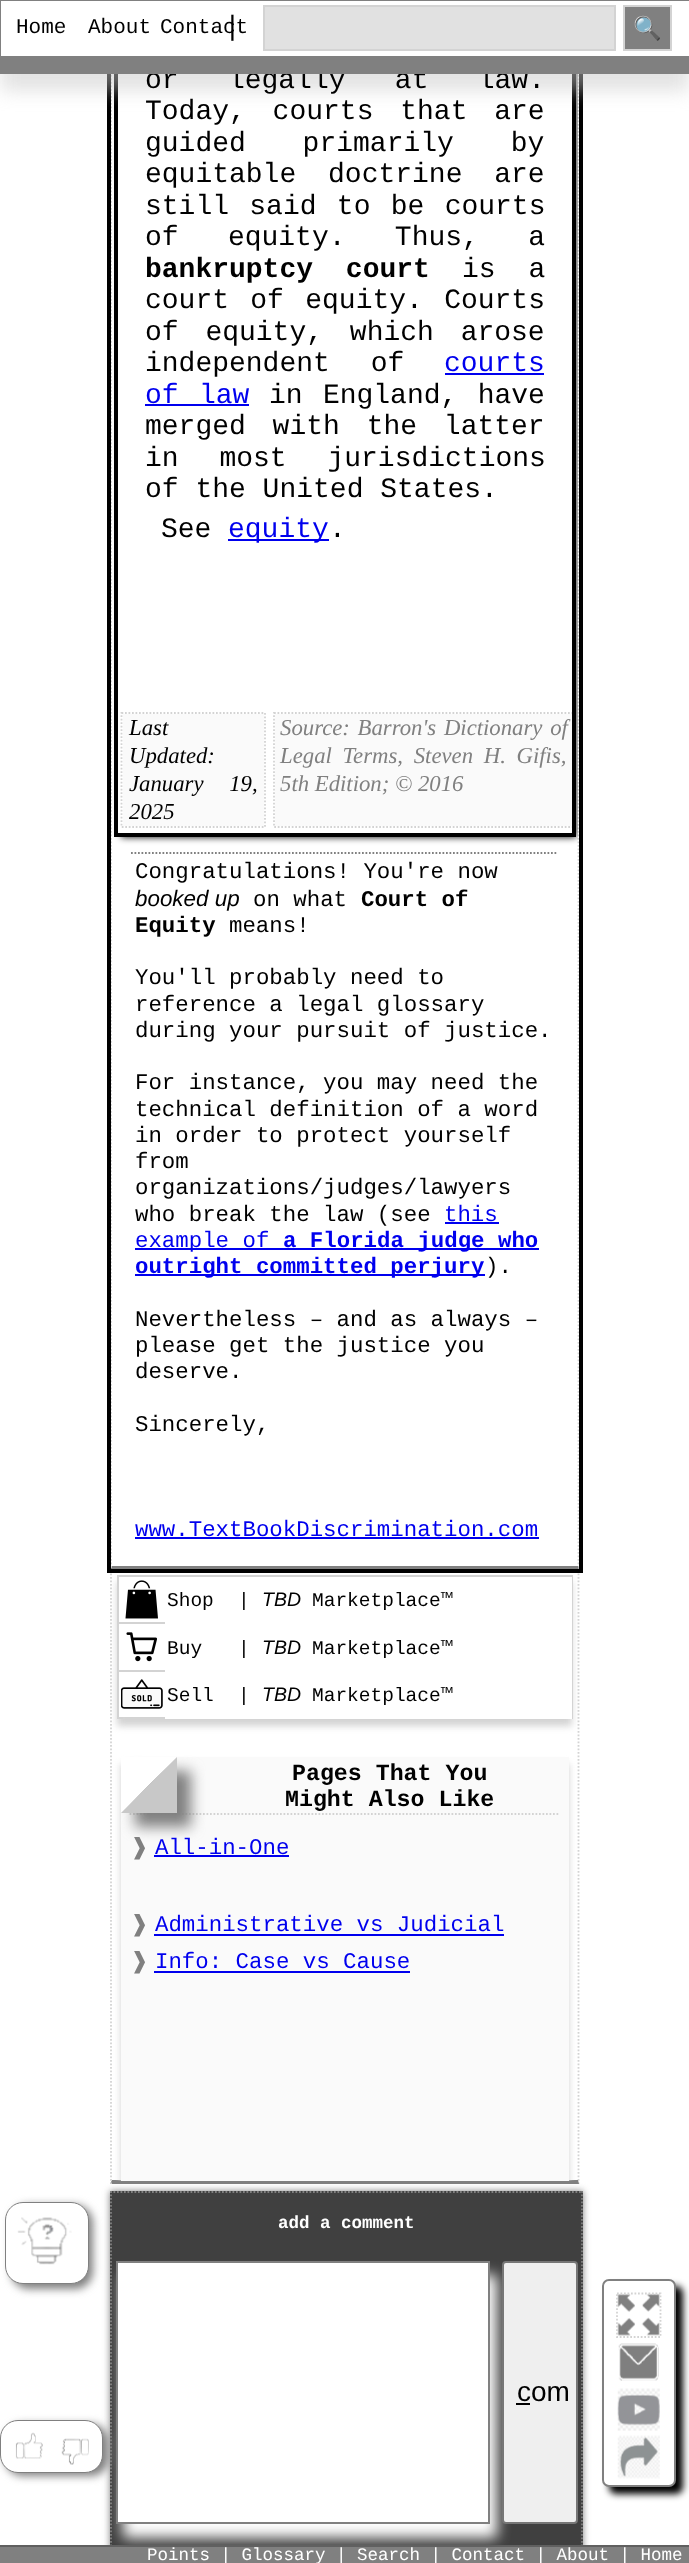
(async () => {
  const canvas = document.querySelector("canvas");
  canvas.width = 689;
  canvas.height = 2563;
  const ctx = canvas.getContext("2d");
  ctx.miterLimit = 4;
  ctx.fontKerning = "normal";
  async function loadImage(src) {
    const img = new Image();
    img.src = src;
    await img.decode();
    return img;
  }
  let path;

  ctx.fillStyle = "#ffffff";
  ctx.fillRect(0, 0, 689, 2563);
  path = new Path2D("M578.5-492V1570");
  ctx.strokeStyle = "#d3d3d3";
  ctx.lineWidth = 1.8;
  ctx.setLineDash([1.75, 1.75]);
  ctx.stroke(path);
  ctx.fillStyle = "#808080";
  path = new Path2D("M579 1570H110L112 1566H578Z");
  ctx.fill(path);
  path = new Path2D("M111-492V1570");
  ctx.stroke(path);
  path = new Path2D("M131 853H558");
  ctx.strokeStyle = "#808080";
  ctx.stroke(path);
  for (const [x, y, w, h, color] of [
    [445, 1222, 54, 2, "#0000ee"],
    [135, 1248, 404, 2, "#0000ee"],
    [135, 1274, 350, 2, "#0000ee"],
    [135, 1537, 404, 2, "#0000ee"],
  ]) {
    ctx.fillStyle = color;
    ctx.fillRect(x, y, w, h);
  }
  ctx.fillStyle = "#808080";
  ctx.filter = "blur(3.5px)";
  ctx.beginPath();
  ctx.rect(110, 2191, 473, 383);
  ctx.fill();
  ctx.filter = "none";
  path = new Path2D("M578.5 1570V2184");
  ctx.strokeStyle = "#d3d3d3";
  ctx.stroke(path);
  path = new Path2D("M579 2184H110L112 2180H578Z");
  ctx.fill(path);
  path = new Path2D("M111 1570V2184");
  ctx.stroke(path);
  ctx.save();
  ctx.beginPath();
  ctx.rect(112, 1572, 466, 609);
  ctx.clip();
  ctx.fillStyle = "#d3d3d3";
  ctx.filter = "blur(3.5px)";
  ctx.beginPath();
  ctx.rect(117, 1582, 455, 144);
  ctx.fill();
  ctx.filter = "none";
  ctx.restore();
  ctx.strokeStyle = "#000000";
  ctx.lineWidth = 4;
  ctx.setLineDash([]);
  ctx.strokeRect(109, -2, 472, 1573);
  ctx.save();
  ctx.beginPath();
  ctx.rect(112, 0, 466, 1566);
  ctx.clip();
  path = new Path2D("M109 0H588V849H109ZM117-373H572V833H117Z");
  ctx.clip(path, "evenodd");
  ctx.fillStyle = "#000000";
  ctx.filter = "blur(3.5px)";
  ctx.beginPath();
  ctx.rect(121, -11, 455, 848);
  ctx.fill();
  ctx.filter = "none";
  ctx.restore();
  for (const [x, y, w, h, color] of [
    [445, 373, 99, 2, "#0000ee"],
    [145, 404, 104, 2, "#0000ee"],
    [228, 539, 101, 2, "#0000ee"],
  ]) {
    ctx.fillStyle = color;
    ctx.fillRect(x, y, w, h);
  }
  ctx.strokeRect(116, -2, 458, 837);
  ctx.fillStyle = "rgba(200, 200, 200, 0.5)";
  ctx.filter = "blur(9px)";
  ctx.beginPath();
  ctx.rect(0, 35, 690, 56);
  ctx.fill();
  ctx.filter = "none";
  ctx.fillStyle = "#ffffff";
  ctx.fillRect(1, 1, 688, 55);
  ctx.fillStyle = "#e1e1e1";
  ctx.beginPath();
  ctx.rect(264, 6, 351, 44);
  ctx.fill();
  ctx.strokeStyle = "#d3d3d3";
  ctx.lineWidth = 2;
  ctx.stroke();
  ctx.fillStyle = "#808080";
  ctx.beginPath();
  ctx.rect(624, 6, 47, 44);
  ctx.fill();
  ctx.stroke();
  for (const [x, y, w, h, color] of [
    [123, 714, 141, 112, "#fafafa"],
    [275, 714, 297, 112, "#fafafa"],
    [119, 1577, 46, 140, "#ffffff"],
    [117, 1575, 455, 2, "#d3d3d3"],
    [571, 1575, 2, 144, "#d3d3d3"],
    [117, 1717, 6, 2, "#d3d3d3"],
    [117, 1575, 2, 144, "#d3d3d3"],
  ]) {
    ctx.fillStyle = color;
    ctx.fillRect(x, y, w, h);
  }
  ctx.drawImage(await loadImage("img/1.png"), 125, 1580, 33, 39);
  ctx.fillStyle = "#ffffff";
  ctx.fillRect(165, 1577, 407, 142);
  ctx.fillStyle = "#d3d3d3";
  ctx.fillRect(117, 1622, 48, 2);
  ctx.drawImage(await loadImage("img/2.png"), 126, 1632, 31, 30);
  ctx.fillRect(117, 1670, 48, 2);
  ctx.drawImage(await loadImage("img/3.png"), 121, 1679, 42, 30);
  ctx.fillStyle = "#404040";
  ctx.fillRect(110, 2191, 473, 354);
  path = new Path2D("M110 2192H583");
  ctx.strokeStyle = "#808080";
  ctx.lineWidth = 1.8;
  ctx.setLineDash([1.75, 1.75]);
  ctx.stroke(path);
  path = new Path2D("M111 2191V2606");
  ctx.stroke(path);
  ctx.fillStyle = "#ffffff";
  ctx.filter = "blur(7px)";
  ctx.beginPath();
  ctx.rect(123, 2275, 374, 263);
  ctx.fill();
  ctx.filter = "none";
  ctx.beginPath();
  ctx.rect(117, 2262, 372, 261);
  ctx.fill();
  ctx.lineWidth = 2;
  ctx.setLineDash([]);
  ctx.stroke();
  ctx.fillStyle = "#efefef";
  ctx.beginPath();
  ctx.roundRect(503, 2262, 74, 261, 3);
  ctx.fill();
  ctx.strokeStyle = "#767676";
  ctx.stroke();
  ctx.fillStyle = "#000000";
  ctx.fillRect(516, 2403, 14, 2);
  ctx.save();
  ctx.beginPath();
  ctx.rect(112, 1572, 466, 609);
  ctx.clip();
  ctx.fillStyle = "#d3d3d3";
  ctx.filter = "blur(3.5px)";
  ctx.beginPath();
  ctx.rect(121, 1764, 448, 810);
  ctx.fill();
  ctx.filter = "none";
  ctx.restore();
  ctx.fillStyle = "#fafafa";
  ctx.fillRect(121, 1757, 448, 424);
  path = new Path2D("M129.5 1814H560");
  ctx.strokeStyle = "#d3d3d3";
  ctx.lineWidth = 1.8;
  ctx.setLineDash([1.75, 1.75]);
  ctx.stroke(path);
  ctx.fillStyle = "#808080";
  ctx.filter = "blur(7px)";
  ctx.beginPath();
  ctx.rect(135, 1771, 56, 56);
  ctx.fill();
  ctx.filter = "none";
  ctx.fillStyle = "#ffffff";
  path = new Path2D("M121 1757H177L121 1813Z");
  ctx.fill(path);
  ctx.fillStyle = "#c8c8c8";
  path = new Path2D("M177 1757V1813H121Z");
  ctx.fill(path);
  for (const [x, y, w, h, color] of [
    [154, 1855, 135, 2, "#0000ee"],
    [154, 1934, 350, 2, "#0000ee"],
    [154, 1971, 256, 2, "#0000ee"],
  ]) {
    ctx.fillStyle = color;
    ctx.fillRect(x, y, w, h);
  }
  ctx.fillStyle = "#808080";
  ctx.filter = "blur(4.5px)";
  ctx.beginPath();
  ctx.roundRect(11, 2205, 82, 84, 18);
  ctx.fill();
  ctx.filter = "none";
  ctx.fillStyle = "#ffffff";
  ctx.beginPath();
  ctx.roundRect(5.5, 2202.5, 83, 81, 17.5);
  ctx.fill();
  ctx.strokeStyle = "#808080";
  ctx.lineWidth = 1;
  ctx.setLineDash([]);
  ctx.stroke();
  ctx.drawImage(await loadImage("img/4.png"), 17, 2217, 55, 48);
  path = new Path2D("M582 2191V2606");
  ctx.lineWidth = 1.8;
  ctx.setLineDash([1.75, 1.75]);
  ctx.stroke(path);
  ctx.fillStyle = "#808080";
  ctx.filter = "blur(4.5px)";
  ctx.beginPath();
  ctx.roundRect(5, 2424, 104, 52, 18);
  ctx.fill();
  ctx.filter = "none";
  ctx.fillStyle = "#ffffff";
  ctx.beginPath();
  ctx.roundRect(0.5, 2420.5, 102, 52, 17.5);
  ctx.fill();
  ctx.lineWidth = 1;
  ctx.setLineDash([]);
  ctx.stroke();
  ctx.drawImage(await loadImage("img/5.png"), 15, 2432, 28, 27);
  ctx.drawImage(await loadImage("img/6.png"), 61, 2438, 28, 27);
  ctx.fillStyle = "#000000";
  ctx.filter = "blur(3.5px)";
  ctx.beginPath();
  ctx.roundRect(609, 2286, 74, 208, 7);
  ctx.fill();
  ctx.filter = "none";
  ctx.fillStyle = "#ffffff";
  ctx.beginPath();
  ctx.roundRect(603, 2280, 72, 206, 6);
  ctx.fill();
  ctx.lineWidth = 2;
  ctx.stroke();
  ctx.drawImage(await loadImage("img/7.png"), 617, 2293, 43, 43);
  path = new Path2D("M617 2293.5H660.5V2337H617Z");
  ctx.strokeStyle = "#d3d3d3";
  ctx.lineWidth = 1.8;
  ctx.setLineDash([1.75, 1.75]);
  ctx.stroke(path);
  ctx.drawImage(await loadImage("img/8.png"), 618, 2343, 41, 38);
  ctx.drawImage(await loadImage("img/9.png"), 617, 2388, 43, 43);
  ctx.drawImage(await loadImage("img/10.png"), 617, 2435, 43, 44);
  ctx.fillStyle = "#808080";
  ctx.fillRect(0, 2547, 689, 16);
  ctx.fillStyle = "#606060";
  ctx.fillRect(0, 2545, 689, 2);
  ctx.font = "28px Liberation Mono";
  ctx.fillStyle = "#000000";
  ctx.fillText("|", 224, 35);
  ctx.font = "23px Noto Color Emoji";
  ctx.fillStyle = "#ffffff";
  ctx.fillText("🔍", 633, 36);
  ctx.wordSpacing = "32.5px";
  ctx.font = "28px Liberation Mono";
  ctx.fillStyle = "#000000";
  ctx.fillText("or legally at law.", 145, 88);
  ctx.strokeStyle = "#808080";
  ctx.lineWidth = 18;
  ctx.setLineDash([]);
  ctx.strokeRect(-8, -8, 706, 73);
  ctx.wordSpacing = "0px";
  ctx.font = "21px Liberation Mono";
  for (const [text, x, y] of [
    ["Contact", 160, 33],
    ["About", 88, 33],
    ["Home", 16, 33],
  ]) {
    ctx.fillText(text, x, y);
  }
  ctx.wordSpacing = "10px";
  ctx.font = "28px Liberation Mono";
  ctx.fillText("Today, courts that are", 145, 119);
  ctx.wordSpacing = "40px";
  ctx.fillText("guided primarily by", 145, 151);
  ctx.wordSpacing = "15px";
  ctx.fillText("equitable doctrine are", 145, 182);
  ctx.wordSpacing = "3.5px";
  ctx.fillText("still said to be courts", 145, 214);
  ctx.wordSpacing = "32.5px";
  ctx.fillText("of equity. Thus, a", 145, 245);
  ctx.wordSpacing = "16px";
  ctx.font = "bold 28px Liberation Mono";
  ctx.fillText("bankruptcy court", 145, 277);
  ctx.font = "28px Liberation Mono";
  ctx.fillText("is a", 462, 277);
  ctx.wordSpacing = "4.5px";
  ctx.fillText("court of equity. Courts", 145, 308);
  ctx.wordSpacing = "10px";
  ctx.fillText("of equity, which arose", 145, 340);
  ctx.wordSpacing = "24px";
  ctx.fillText("independent of", 145, 371);
  ctx.wordSpacing = "0px";
  ctx.fillStyle = "#0000ee";
  ctx.fillText("courts", 444, 371);
  ctx.wordSpacing = "3.5px";
  ctx.fillText("of law", 145, 403);
  ctx.fillStyle = "#000000";
  ctx.fillText("in England, have", 269, 403);
  ctx.wordSpacing = "10px";
  ctx.fillText("merged with the latter", 145, 434);
  ctx.wordSpacing = "24px";
  ctx.fillText("in most jurisdictions", 145, 466);
  ctx.wordSpacing = "0px";
  ctx.fillText("of the United States.", 145, 497);
  ctx.fillText("See", 161, 537);
  ctx.fillStyle = "#0000ee";
  ctx.fillText("equity", 228, 537);
  ctx.fillStyle = "#000000";
  ctx.fillText(".", 329, 537);
  ctx.font = "italic 22.75px Liberation Serif";
  ctx.fillText("Last", 129, 735);
  ctx.fillText("Updated:", 129, 763);
  ctx.wordSpacing = "20px";
  ctx.fillText("January 19,", 129, 791);
  ctx.wordSpacing = "0px";
  ctx.fillText("2025", 129, 819);
  path = new Path2D("M121.5 713H265V827H121.5Z");
  ctx.strokeStyle = "#d3d3d3";
  ctx.lineWidth = 1.8;
  ctx.setLineDash([1.75, 1.75]);
  ctx.stroke(path);
  ctx.wordSpacing = "2px";
  ctx.fillStyle = "#808080";
  ctx.fillText("Source: Barron's Dictionary of", 280, 735);
  ctx.wordSpacing = "5px";
  ctx.fillText("Legal Terms, Steven H. Gifis,", 280, 763);
  ctx.wordSpacing = "0px";
  ctx.fillText("5th Edition; © 2016", 280, 791);
  ctx.save();
  ctx.beginPath();
  ctx.rect(117, 0, 455, 833);
  ctx.clip();
  path = new Path2D("M274 713H575V827H274Z");
  ctx.stroke(path);
  ctx.restore();
  ctx.font = "22.4px Liberation Mono";
  ctx.fillStyle = "#000000";
  ctx.fillText("Congratulations! You're now", 135, 878);
  ctx.font = "italic 22.4px Liberation Sans";
  ctx.fillText("booked up", 135, 906);
  ctx.font = "22.4px Liberation Mono";
  ctx.fillText("on what", 253, 906);
  ctx.font = "bold 22.4px Liberation Mono";
  ctx.fillText("Court of", 361, 906);
  ctx.fillText("Equity", 135, 932);
  ctx.font = "22.4px Liberation Mono";
  for (const [text, x, y] of [
    ["means!", 229, 932],
    ["You'll probably need to", 135, 984],
    ["reference a legal glossary", 135, 1011],
    ["during your pursuit of justice.", 135, 1037],
    ["For instance, you may need the", 135, 1089],
    ["technical definition of a word", 135, 1116],
    ["in order to protect yourself", 135, 1142],
    ["from", 135, 1168],
    ["organizations/judges/lawyers", 135, 1194],
    ["who break the law (see", 135, 1221],
  ]) {
    ctx.fillText(text, x, y);
  }
  ctx.fillStyle = "#0000ee";
  ctx.fillText("this", 444, 1221);
  ctx.fillText("example of", 135, 1247);
  ctx.font = "bold 22.4px Liberation Mono";
  ctx.fillText("a Florida judge who", 283, 1247);
  ctx.fillText("outright committed perjury", 135, 1273);
  ctx.font = "22.4px Liberation Mono";
  ctx.fillStyle = "#000000";
  for (const [text, x, y] of [
    [").", 485, 1273],
    ["Nevertheless – and as always –", 135, 1326],
    ["please get the justice you", 135, 1352],
    ["deserve.", 135, 1378],
    ["Sincerely,", 135, 1431],
  ]) {
    ctx.fillText(text, x, y);
  }
  ctx.fillStyle = "#0000ee";
  ctx.fillText("www.TextBookDiscrimination.com", 135, 1536);
  ctx.font = "19.5px Liberation Mono";
  ctx.fillStyle = "#000000";
  ctx.fillText("Shop", 167, 1606);
  ctx.fillText("|", 238, 1606);
  ctx.font = "italic 19.5px Liberation Sans";
  ctx.fillText("TBD", 262, 1606);
  ctx.font = "19.5px Liberation Mono";
  for (const [text, x, y] of [
    ["Marketplace™", 312, 1606],
    ["Buy", 167, 1654],
    ["|", 238, 1654],
  ]) {
    ctx.fillText(text, x, y);
  }
  ctx.font = "italic 19.5px Liberation Sans";
  ctx.fillText("TBD", 262, 1654);
  ctx.font = "19.5px Liberation Mono";
  for (const [text, x, y] of [
    ["Marketplace™", 312, 1654],
    ["Sell", 167, 1701],
    ["|", 238, 1701],
  ]) {
    ctx.fillText(text, x, y);
  }
  ctx.font = "italic 19.5px Liberation Sans";
  ctx.fillText("TBD", 262, 1701);
  ctx.font = "19.5px Liberation Mono";
  ctx.fillText("Marketplace™", 312, 1701);
  ctx.font = "bold 23.25px Liberation Mono";
  ctx.fillText("Pages That You", 292, 1780);
  ctx.fillText("Might Also Like", 285, 1806);
  ctx.font = "22.4px DejaVu Sans";
  ctx.fillStyle = "#808080";
  ctx.fillText("❱", 130, 1854);
  ctx.font = "22.4px Liberation Mono";
  ctx.fillStyle = "#0000ee";
  ctx.fillText("All-in-One", 155, 1854);
  ctx.font = "22.4px DejaVu Sans";
  ctx.fillStyle = "#808080";
  ctx.fillText("❱", 130, 1931);
  ctx.font = "22.4px Liberation Mono";
  ctx.fillStyle = "#0000ee";
  ctx.fillText("Administrative vs Judicial", 155, 1931);
  ctx.font = "22.4px DejaVu Sans";
  ctx.fillStyle = "#808080";
  ctx.fillText("❱", 130, 1968);
  ctx.font = "22.4px Liberation Mono";
  ctx.fillStyle = "#0000ee";
  ctx.fillText("Info: Case vs Cause", 155, 1968);
  ctx.font = "bold 17.5px Liberation Mono";
  ctx.fillStyle = "#ffffff";
  ctx.fillText("add a comment", 278, 2228);
  ctx.font = "28px Liberation Sans";
  ctx.fillStyle = "#000000";
  ctx.fillText("com", 517, 2401);
  ctx.font = "17.5px Liberation Mono";
  ctx.fillStyle = "#ffffff";
  ctx.fillText("Points | Glossary | Search | Contact | About | Home", 147, 2560);
})();
